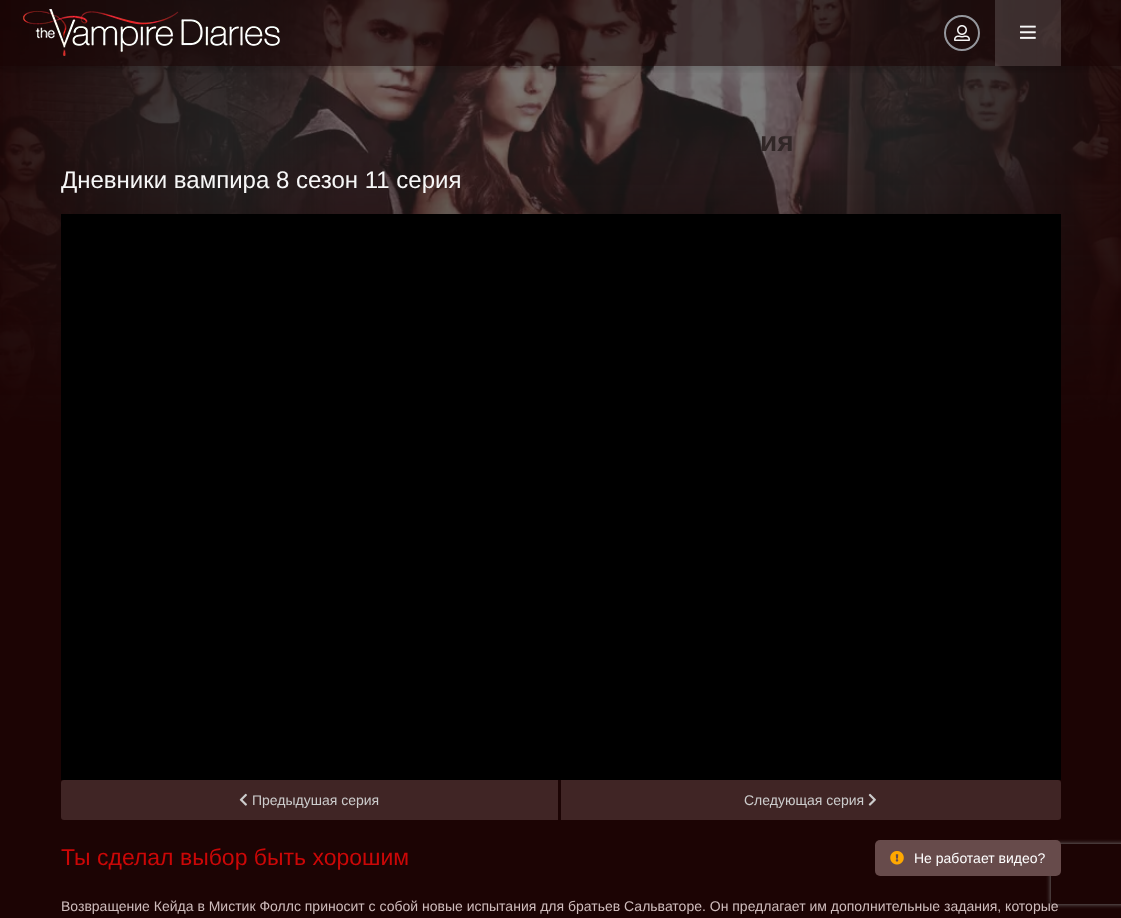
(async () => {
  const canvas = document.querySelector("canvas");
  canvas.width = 1121;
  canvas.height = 918;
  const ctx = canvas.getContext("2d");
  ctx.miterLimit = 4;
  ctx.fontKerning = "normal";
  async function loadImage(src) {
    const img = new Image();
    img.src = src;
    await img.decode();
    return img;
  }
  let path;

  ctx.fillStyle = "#1c0404";
  ctx.fillRect(0, 0, 1121, 918);
  ctx.drawImage(await loadImage("img/1.png"), 0, 0, 1121, 500);
  ctx.save();
  ctx.beginPath();
  ctx.rect(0, 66, 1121, 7);
  ctx.clip();
  ctx.fillStyle = "rgba(0, 0, 0, 0.1)";
  ctx.filter = "blur(2.5px)";
  ctx.beginPath();
  ctx.rect(0, 5, 1121, 66);
  ctx.fill();
  ctx.filter = "none";
  ctx.restore();
  ctx.fillStyle = "rgba(24, 4, 4, 0.58)";
  ctx.fillRect(0, 0, 1121, 66);
  ctx.drawImage(await loadImage("img/2.png"), 23, 9, 257, 47);
  ctx.beginPath();
  ctx.arc(962, 33, 17, 0, Math.PI * 2);
  ctx.strokeStyle = "#95979d";
  ctx.lineWidth = 2;
  ctx.stroke();
  ctx.drawImage(await loadImage("img/3.png"), 954, 25, 16, 16);
  ctx.fillStyle = "rgba(255, 255, 255, 0.15)";
  ctx.fillRect(995, 0, 66, 66);
  ctx.drawImage(await loadImage("img/4.png"), 1020, 25, 16, 14);
  ctx.fillStyle = "#000000";
  ctx.fillRect(61, 214, 1000, 566);
  ctx.fillStyle = "#402525";
  ctx.beginPath();
  ctx.roundRect(61, 780, 500, 40, [3, 0, 0, 3]);
  ctx.fill();
  ctx.fillStyle = "#1c0404";
  ctx.fillRect(558, 780, 3, 40);
  ctx.drawImage(await loadImage("img/5.png"), 239, 793, 8, 13);
  ctx.fillStyle = "#402525";
  ctx.beginPath();
  ctx.roundRect(561, 780, 500, 40, [0, 3, 3, 0]);
  ctx.fill();
  ctx.drawImage(await loadImage("img/6.png"), 868, 793, 8, 13);
  ctx.save();
  path = new Path2D("M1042 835H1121V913H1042ZM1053 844H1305C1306 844 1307 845 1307 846V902C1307 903 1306 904 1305 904H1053C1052 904 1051 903 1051 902V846C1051 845 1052 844 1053 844Z");
  ctx.clip(path, "evenodd");
  ctx.fillStyle = "#808080";
  ctx.filter = "blur(2.5px)";
  ctx.beginPath();
  ctx.roundRect(1051, 844, 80, 60, 2);
  ctx.fill();
  ctx.filter = "none";
  ctx.restore();
  ctx.fillStyle = "#674b4b";
  ctx.beginPath();
  ctx.roundRect(875, 840, 186, 36, 5);
  ctx.fill();
  ctx.drawImage(await loadImage("img/7.png"), 890, 851, 14, 14);
  ctx.font = "bold 28px Liberation Sans";
  ctx.fillStyle = "#312727";
  ctx.fillText("ия", 760, 151);
  ctx.font = "24px Liberation Sans";
  ctx.fillStyle = "#f7f7f7";
  ctx.fillText("Дневники вампира 8 сезон 11 серия", 61, 188);
  ctx.font = "14px Liberation Sans";
  ctx.fillStyle = "#cccccc";
  ctx.fillText("Предыдушая серия", 252, 805);
  ctx.fillText("Следующая серия", 744, 805);
  ctx.font = "23px Liberation Sans";
  ctx.fillStyle = "#cb0707";
  ctx.fillText("Ты сделал выбор быть хорошим", 61, 865);
  ctx.font = "14px Liberation Sans";
  ctx.fillStyle = "#ffffff";
  ctx.fillText("Не работает видео?", 914, 863);
  ctx.fillStyle = "#cfbdbd";
  ctx.fillText("Возвращение Кейда в Мистик Фоллс приносит с собой новые испытания для братьев Сальваторе. Он предлагает им дополнительные задания, которые", 61, 911);
})();
